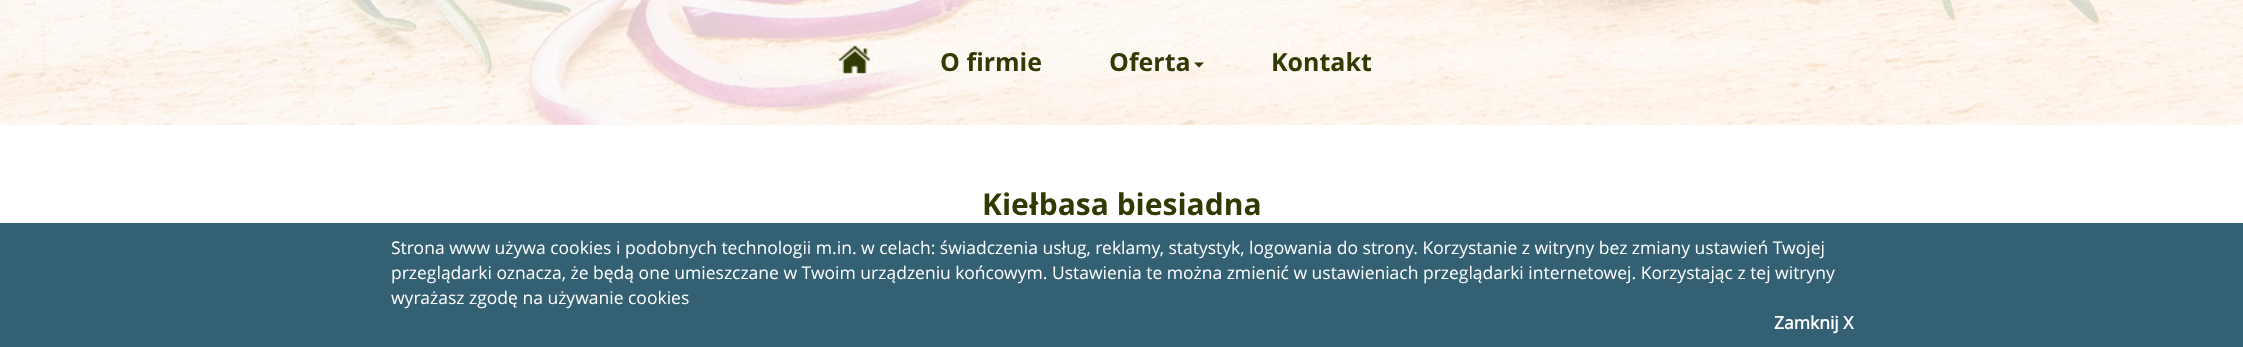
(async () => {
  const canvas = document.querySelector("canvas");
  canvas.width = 2243;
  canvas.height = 347;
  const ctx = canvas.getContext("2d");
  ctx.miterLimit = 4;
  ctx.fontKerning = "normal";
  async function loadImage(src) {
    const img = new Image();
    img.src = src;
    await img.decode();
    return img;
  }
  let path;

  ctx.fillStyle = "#ffffff";
  ctx.fillRect(0, 0, 2243, 347);
  ctx.drawImage(await loadImage("img/1.png"), 0, 0, 2243, 125);
  ctx.drawImage(await loadImage("img/2.png"), 838, 45, 32, 29);
  ctx.fillStyle = "#303a02";
  path = new Path2D("M1194 62.5H1204L1199 67.5Z");
  ctx.fill(path);
  ctx.fillStyle = "#336072";
  ctx.fillRect(0, 223, 2243, 124);
  ctx.font = "bold 25px Open Sans";
  ctx.fillStyle = "#303a02";
  for (const [text, x, y] of [
    ["O firmie", 940, 71],
    ["Oferta", 1109, 71],
    ["Kontakt", 1271, 71],
  ]) {
    ctx.fillText(text, x, y);
  }
  ctx.font = "bold 30px Open Sans";
  ctx.fillText("Kiełbasa biesiadna", 982, 215);
  ctx.font = "17.5px Open Sans";
  ctx.fillStyle = "#ffffff";
  for (const [text, x, y] of [
    ["Strona www używa cookies i podobnych technologii m.in. w celach: świadczenia usług, reklamy, statystyk, logowania do strony. Korzystanie z witryny bez zmiany ustawień Twojej", 391, 254],
    ["przeglądarki oznacza, że będą one umieszczane w Twoim urządzeniu końcowym. Ustawienia te można zmienić w ustawieniach przeglądarki internetowej. Korzystając z tej witryny", 391, 279],
    ["wyrażasz zgodę na używanie cookies", 391, 304],
  ]) {
    ctx.fillText(text, x, y);
  }
  ctx.font = "bold 17.5px 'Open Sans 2'";
  ctx.fillText("Zamknij X", 1774, 329);
})();
